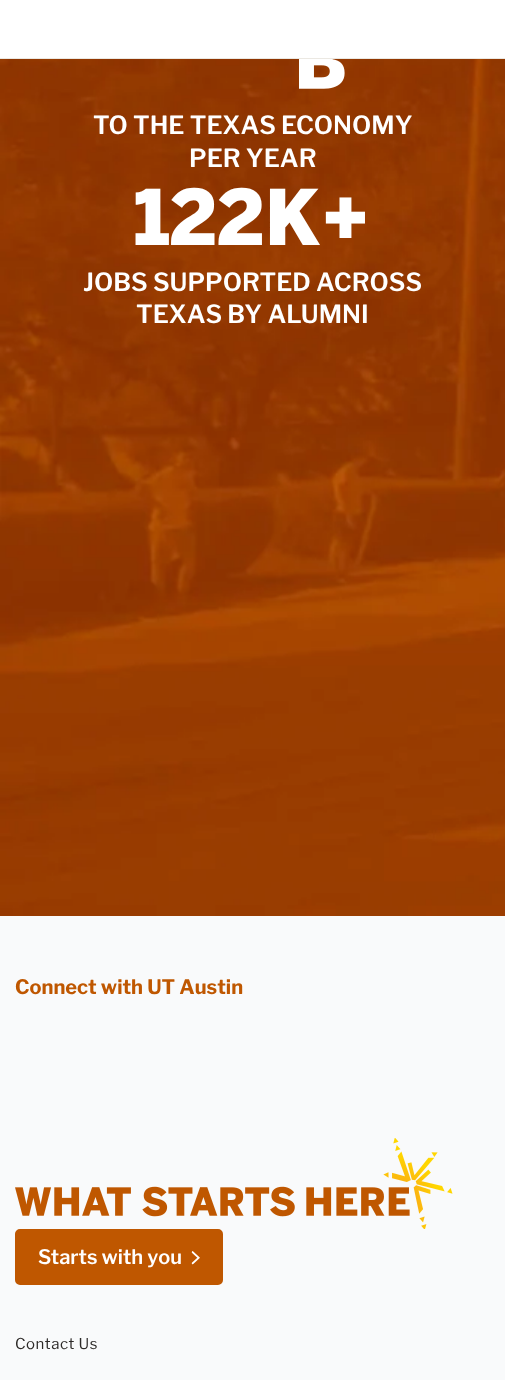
(async () => {
  const canvas = document.querySelector("canvas");
  canvas.width = 505;
  canvas.height = 1380;
  const ctx = canvas.getContext("2d");
  ctx.miterLimit = 4;
  ctx.fontKerning = "normal";
  async function loadImage(src) {
    const img = new Image();
    img.src = src;
    await img.decode();
    return img;
  }

  ctx.fillStyle = "#ffffff";
  ctx.fillRect(0, 0, 505, 1380);
  ctx.fillStyle = "#ebe8e2";
  ctx.fillRect(0, 58, 505, 1);
  ctx.drawImage(await loadImage("img/1.png"), 0, 59, 505, 857);
  ctx.drawImage(await loadImage("img/2.png"), 299, 59, 46, 30);
  ctx.fillStyle = "#f9fafb";
  ctx.fillRect(0, 916, 505, 464);
  ctx.drawImage(await loadImage("img/3.png"), 15, 1138, 438, 91);
  ctx.fillStyle = "#bf5700";
  ctx.beginPath();
  ctx.roundRect(16.5, 1230.5, 205, 53, 3.5);
  ctx.fill();
  ctx.strokeStyle = "#bf5700";
  ctx.lineWidth = 3;
  ctx.stroke();
  ctx.drawImage(await loadImage("img/4.png"), 191, 1251, 9, 14);
  ctx.font = "600 25px Libre Franklin";
  ctx.fillStyle = "#ffffff";
  ctx.fillText("TO THE TEXAS ECONOMY", 93, 134);
  ctx.fillText("PER YEAR", 189, 167);
  ctx.font = "900 76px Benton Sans";
  ctx.fillText("122K+", 134, 245);
  ctx.font = "600 25px Libre Franklin";
  ctx.fillText("JOBS SUPPORTED ACROSS", 83, 291);
  ctx.fillText("TEXAS BY ALUMNI", 136, 323);
  ctx.font = "bold 20px Libre Franklin";
  ctx.fillStyle = "#bf5700";
  ctx.fillText("Connect with UT Austin", 15, 994);
  ctx.font = "600 20px Libre Franklin";
  ctx.fillStyle = "#ffffff";
  ctx.fillText("Starts with you", 38, 1264);
  ctx.letterSpacing = "0.5px";
  ctx.font = "15px Libre Franklin";
  ctx.fillStyle = "#2d2a28";
  ctx.fillText("Contact Us", 15, 1349);
})();
